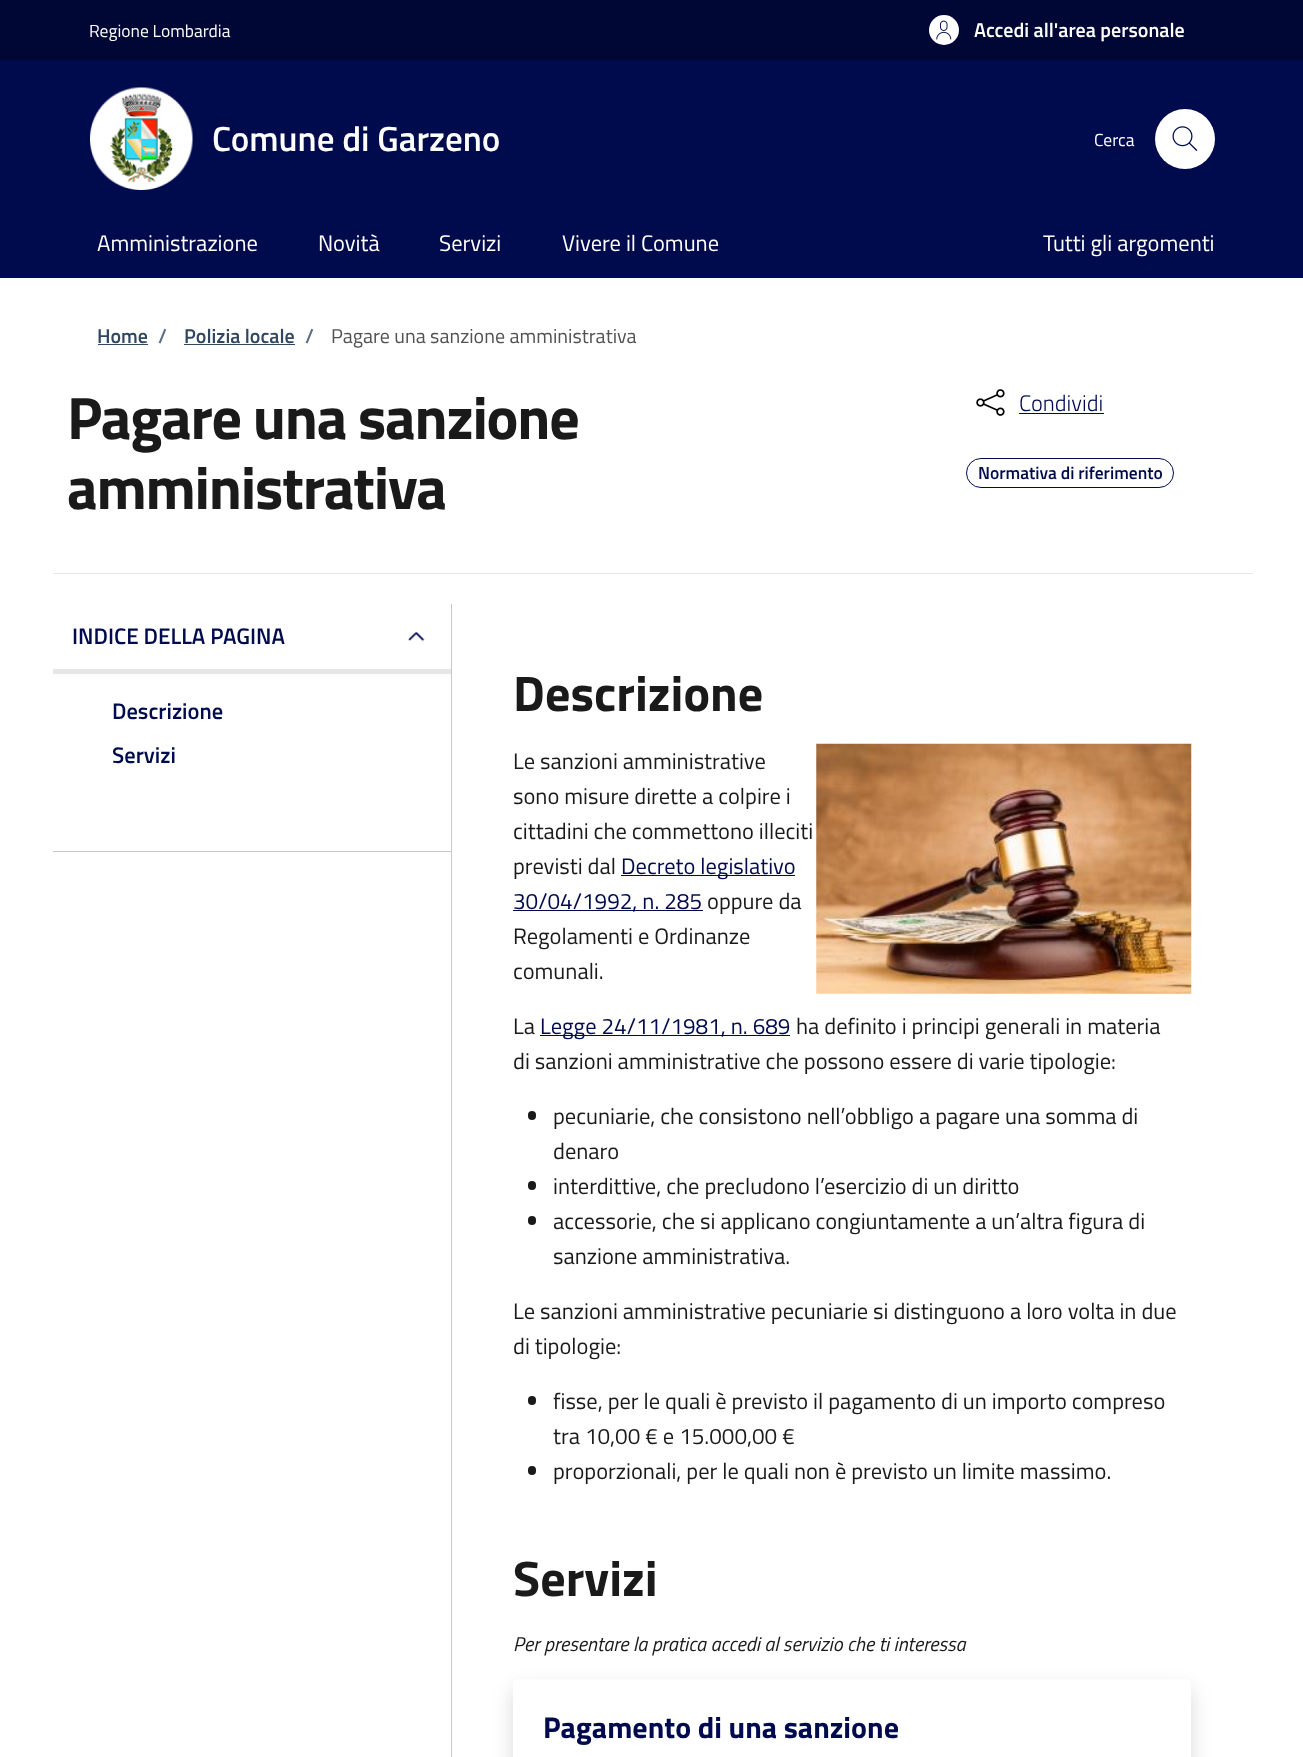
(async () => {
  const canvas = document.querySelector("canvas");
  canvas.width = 1303;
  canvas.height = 1757;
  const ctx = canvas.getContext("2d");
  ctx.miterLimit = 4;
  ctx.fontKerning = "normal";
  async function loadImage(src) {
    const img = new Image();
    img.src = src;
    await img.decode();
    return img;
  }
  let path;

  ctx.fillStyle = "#ffffff";
  ctx.fillRect(0, 0, 1303, 1757);
  ctx.fillStyle = "#000735";
  ctx.fillRect(0, 0, 1303, 60);
  ctx.fillStyle = "#ffffff";
  ctx.beginPath();
  ctx.arc(944, 30, 15, 0, Math.PI * 2);
  ctx.fill();
  ctx.drawImage(await loadImage("img/1.png"), 936, 20, 16, 20);
  ctx.fillStyle = "#000b4d";
  ctx.fillRect(0, 60, 1303, 218);
  ctx.drawImage(await loadImage("img/2.png"), 90, 87, 103, 103);
  ctx.fillStyle = "#ffffff";
  ctx.beginPath();
  ctx.arc(1185, 139, 30, 0, Math.PI * 2);
  ctx.fill();
  ctx.drawImage(await loadImage("img/3.png"), 1172, 126, 26, 25);
  ctx.fillStyle = "#30475f";
  ctx.fillRect(98, 344, 50, 1);
  ctx.fillRect(184, 344, 111, 1);
  ctx.drawImage(await loadImage("img/4.png"), 976, 389, 29, 27);
  ctx.fillStyle = "#000b4d";
  ctx.fillRect(1019, 413, 85, 1);
  ctx.beginPath();
  ctx.roundRect(966.5, 458.5, 207, 29, 14.5);
  ctx.strokeStyle = "#000b4d";
  ctx.stroke();
  ctx.fillStyle = "#e9e6f2";
  ctx.fillRect(53, 573, 1200, 1);
  ctx.fillStyle = "#c5c7c9";
  ctx.fillRect(53, 851, 398, 1);
  ctx.drawImage(await loadImage("img/5.png"), 408, 632, 17, 10);
  ctx.fillStyle = "#e6e6e6";
  ctx.fillRect(53, 669, 398, 5);
  ctx.fillStyle = "#c5c7c9";
  ctx.fillRect(451, 604, 1, 1153);
  ctx.drawImage(await loadImage("img/6.png"), 816, 743, 376, 251);
  for (const [x, y, w, h, color] of [
    [621, 875, 174, 1, "#000b4d"],
    [513, 910, 190, 1, "#000b4d"],
    [540, 1035, 250, 1, "#000b4d"],
  ]) {
    ctx.fillStyle = color;
    ctx.fillRect(x, y, w, h);
  }
  ctx.fillStyle = "#1a1a1a";
  ctx.beginPath();
  ctx.roundRect(528, 1111, 8, 9, 4);
  ctx.fill();
  ctx.beginPath();
  ctx.roundRect(528, 1181, 8, 9, 4);
  ctx.fill();
  ctx.beginPath();
  ctx.roundRect(528, 1216, 8, 9, 4);
  ctx.fill();
  ctx.beginPath();
  ctx.roundRect(528, 1396, 8, 9, 4);
  ctx.fill();
  ctx.beginPath();
  ctx.roundRect(528, 1466, 8, 9, 4);
  ctx.fill();
  ctx.save();
  path = new Path2D("M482 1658H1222V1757H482ZM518 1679H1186C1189 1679 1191 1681 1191 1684V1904C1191 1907 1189 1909 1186 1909H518C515 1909 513 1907 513 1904V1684C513 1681 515 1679 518 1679Z");
  ctx.clip(path, "evenodd");
  ctx.fillStyle = "rgba(0, 0, 0, 0.15)";
  ctx.filter = "blur(10px)";
  ctx.beginPath();
  ctx.roundRect(513, 1689, 678, 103, 5);
  ctx.fill();
  ctx.filter = "none";
  ctx.restore();
  ctx.font = "17.5px Titillium Web";
  ctx.fillStyle = "#ffffff";
  ctx.fillText("Regione Lombardia", 89, 37);
  ctx.font = "600 20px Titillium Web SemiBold";
  ctx.fillText("Accedi all'area personale", 974, 37);
  ctx.font = "600 35px Titillium Web SemiBold";
  ctx.fillText("Comune di Garzeno", 212, 151);
  ctx.font = "17.5px Titillium Web";
  ctx.fillText("Cerca", 1094, 146);
  ctx.font = "22.5px Titillium Web";
  for (const [text, x, y] of [
    ["Amministrazione", 97, 251],
    ["Novità", 318, 251],
    ["Servizi", 439, 251],
    ["Vivere il Comune", 562, 251],
    ["Tutti gli argomenti", 1043, 251],
  ]) {
    ctx.fillText(text, x, y);
  }
  ctx.font = "600 20px Titillium Web SemiBold";
  ctx.fillStyle = "#30475f";
  ctx.fillText("Home", 97, 343);
  ctx.fillStyle = "#5d7083";
  ctx.fillText("/", 158, 343);
  ctx.fillStyle = "#30475f";
  ctx.fillText("Polizia locale", 184, 343);
  ctx.fillStyle = "#5d7083";
  ctx.fillText("/", 305, 343);
  ctx.font = "20px Titillium Web";
  ctx.fillStyle = "#525252";
  ctx.fillText("Pagare una sanzione amministrativa", 331, 343);
  ctx.letterSpacing = "-1.25px";
  ctx.font = "bold 60px Titillium Web";
  ctx.fillStyle = "#1a1a1a";
  ctx.fillText("Pagare una sanzione", 67, 439);
  ctx.fillText("amministrativa", 67, 509);
  ctx.letterSpacing = "0px";
  ctx.font = "300 22.5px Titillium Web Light";
  ctx.fillStyle = "#000b4d";
  ctx.fillText("Condividi", 1019, 411);
  ctx.font = "600 17.5px Titillium Web SemiBold";
  ctx.fillText("Normativa di riferimento", 978, 479);
  ctx.font = "600 22.5px Titillium Web SemiBold";
  for (const [text, x, y] of [
    ["INDICE DELLA PAGINA", 72, 644],
    ["Descrizione", 112, 719],
    ["Servizi", 112, 763],
  ]) {
    ctx.fillText(text, x, y);
  }
  ctx.font = "bold 50px Titillium Web";
  ctx.fillStyle = "#1a1a1a";
  ctx.fillText("Descrizione", 513, 711);
  ctx.font = "22.5px Titillium Web";
  for (const [text, x, y] of [
    ["Le sanzioni amministrative", 513, 769],
    ["sono misure dirette a colpire i", 513, 804],
    ["cittadini che commettono illeciti", 513, 839],
    ["previsti dal", 513, 874],
  ]) {
    ctx.fillText(text, x, y);
  }
  ctx.fillStyle = "#000b4d";
  ctx.fillText("Decreto legislativo", 621, 874);
  ctx.fillText("30/04/1992, n. 285", 513, 909);
  ctx.fillStyle = "#1a1a1a";
  for (const [text, x, y] of [
    ["oppure da", 707, 909],
    ["Regolamenti e Ordinanze", 513, 944],
    ["comunali.", 513, 979],
    ["La", 513, 1034],
  ]) {
    ctx.fillText(text, x, y);
  }
  ctx.fillStyle = "#000b4d";
  ctx.fillText("Legge 24/11/1981, n. 689", 540, 1034);
  ctx.fillStyle = "#1a1a1a";
  for (const [text, x, y] of [
    ["ha definito i principi generali in materia", 796, 1034],
    ["di sanzioni amministrative che possono essere di varie tipologie:", 513, 1069],
    ["pecuniarie, che consistono nell’obbligo a pagare una somma di", 553, 1124],
    ["denaro", 553, 1159],
    ["interdittive, che precludono l’", 553, 1194],
    ["esercizio di un diritto", 824, 1194],
    ["accessorie, che si applicano congiuntamente a un’altra figura di", 553, 1229],
    ["sanzione amministrativa.", 553, 1264],
    ["Le sanzioni amministrative pecuniarie si distinguono a loro volta in due", 513, 1319],
    ["di tipologie:", 513, 1354],
    ["fisse, per le quali è previsto il pagamento di un importo compreso", 553, 1409],
    ["tra 10,00 € e 15.000,00 €", 553, 1444],
    ["proporzionali, per le quali non è previsto un limite massimo.", 553, 1479],
  ]) {
    ctx.fillText(text, x, y);
  }
  ctx.font = "bold 50px Titillium Web";
  ctx.fillText("Servizi", 513, 1596);
  ctx.font = "italic 20px Titillium Web";
  ctx.fillText("Per presentare la pratica accedi al servizio che ti interessa", 513, 1651);
  ctx.font = "bold 30px Titillium Web";
  ctx.fillStyle = "#000b4d";
  ctx.fillText("Pagamento di una sanzione", 543, 1738);
})();
